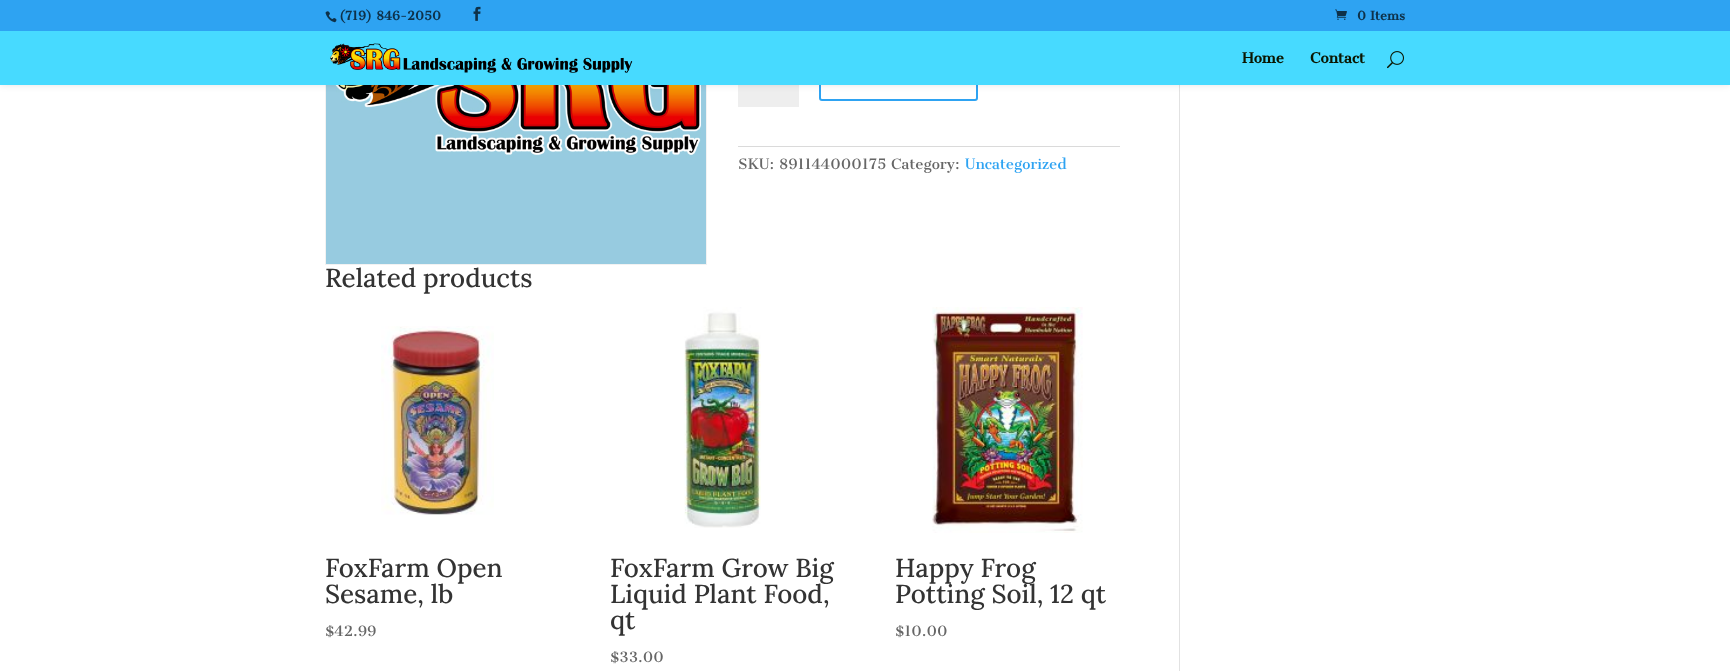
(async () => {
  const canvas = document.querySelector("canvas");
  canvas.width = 1730;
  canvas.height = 671;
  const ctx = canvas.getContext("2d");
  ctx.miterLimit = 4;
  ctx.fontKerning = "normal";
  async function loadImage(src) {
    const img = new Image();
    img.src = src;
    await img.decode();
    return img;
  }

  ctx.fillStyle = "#ffffff";
  ctx.fillRect(0, 0, 1730, 671);
  ctx.strokeStyle = "#f2f2f2";
  ctx.strokeRect(325.5, -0.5, 381, 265);
  ctx.drawImage(await loadImage("img/6.png"), 326, 85, 380, 179);
  ctx.fillStyle = "#eeeeee";
  ctx.fillRect(738, 85, 61, 22);
  ctx.beginPath();
  ctx.roundRect(820, 52, 157, 48, 2);
  ctx.strokeStyle = "#2ea3f2";
  ctx.lineWidth = 2;
  ctx.stroke();
  ctx.fillStyle = "#e2e2e2";
  ctx.fillRect(1179, 85, 1, 586);
  ctx.fillStyle = "rgba(0, 0, 0, 0.1)";
  ctx.filter = "blur(3.5px)";
  ctx.beginPath();
  ctx.rect(0, 31, 1730, 54);
  ctx.fill();
  ctx.filter = "none";
  ctx.fillStyle = "#2ea3f2";
  ctx.fillRect(0, 0, 1730, 31);
  ctx.drawImage(await loadImage("img/1.png"), 325, 11, 12, 12);
  ctx.drawImage(await loadImage("img/2.png"), 473, 6, 8, 15);
  ctx.drawImage(await loadImage("img/3.png"), 1335, 9, 12, 11);
  ctx.fillStyle = "#47daff";
  ctx.fillRect(0, 31, 1730, 54);
  ctx.drawImage(await loadImage("img/4.png"), 330, 43, 303, 30);
  ctx.drawImage(await loadImage("img/5.png"), 1387, 51, 17, 18);
  ctx.fillStyle = "#dadada";
  ctx.fillRect(738, 146, 382, 1);
  ctx.drawImage(await loadImage("img/7.png"), 381, 326, 113, 189);
  ctx.drawImage(await loadImage("img/8.png"), 684, 307, 77, 221);
  ctx.drawImage(await loadImage("img/9.png"), 932, 307, 151, 226);
  ctx.font = "bold 12px Cantata One";
  ctx.fillStyle = "#0e3149";
  ctx.fillText("(719) 846-2050", 339, 20);
  ctx.fillText("0 Items", 1357, 20);
  ctx.font = "bold 14px Cantata One";
  ctx.fillStyle = "#0b1600";
  ctx.fillText("Home", 1242, 63);
  ctx.fillText("Contact", 1310, 63);
  ctx.font = "14px Cantata One";
  ctx.fillStyle = "#666666";
  ctx.fillText("SKU: 891144000175 Category:", 738, 169);
  ctx.fillStyle = "#2ea3f2";
  ctx.fillText("Uncategorized", 965, 169);
  ctx.font = "500 26px Lora";
  ctx.fillStyle = "#333333";
  for (const [text, x, y] of [
    ["Related products", 325, 287],
    ["FoxFarm Open", 325, 577],
    ["Sesame, lb", 325, 603],
  ]) {
    ctx.fillText(text, x, y);
  }
  ctx.font = "14px Cantata One";
  ctx.fillStyle = "#666666";
  ctx.fillText("$42.99", 325, 636);
  ctx.font = "500 26px Lora";
  ctx.fillStyle = "#333333";
  for (const [text, x, y] of [
    ["FoxFarm Grow Big", 610, 577],
    ["Liquid Plant Food,", 610, 603],
    ["qt", 610, 629],
  ]) {
    ctx.fillText(text, x, y);
  }
  ctx.font = "14px Cantata One";
  ctx.fillStyle = "#666666";
  ctx.fillText("$33.00", 610, 662);
  ctx.font = "500 26px Lora";
  ctx.fillStyle = "#333333";
  ctx.fillText("Happy Frog", 895, 577);
  ctx.fillText("Potting Soil, 12 qt", 895, 603);
  ctx.font = "14px Cantata One";
  ctx.fillStyle = "#666666";
  ctx.fillText("$10.00", 895, 636);
})();
